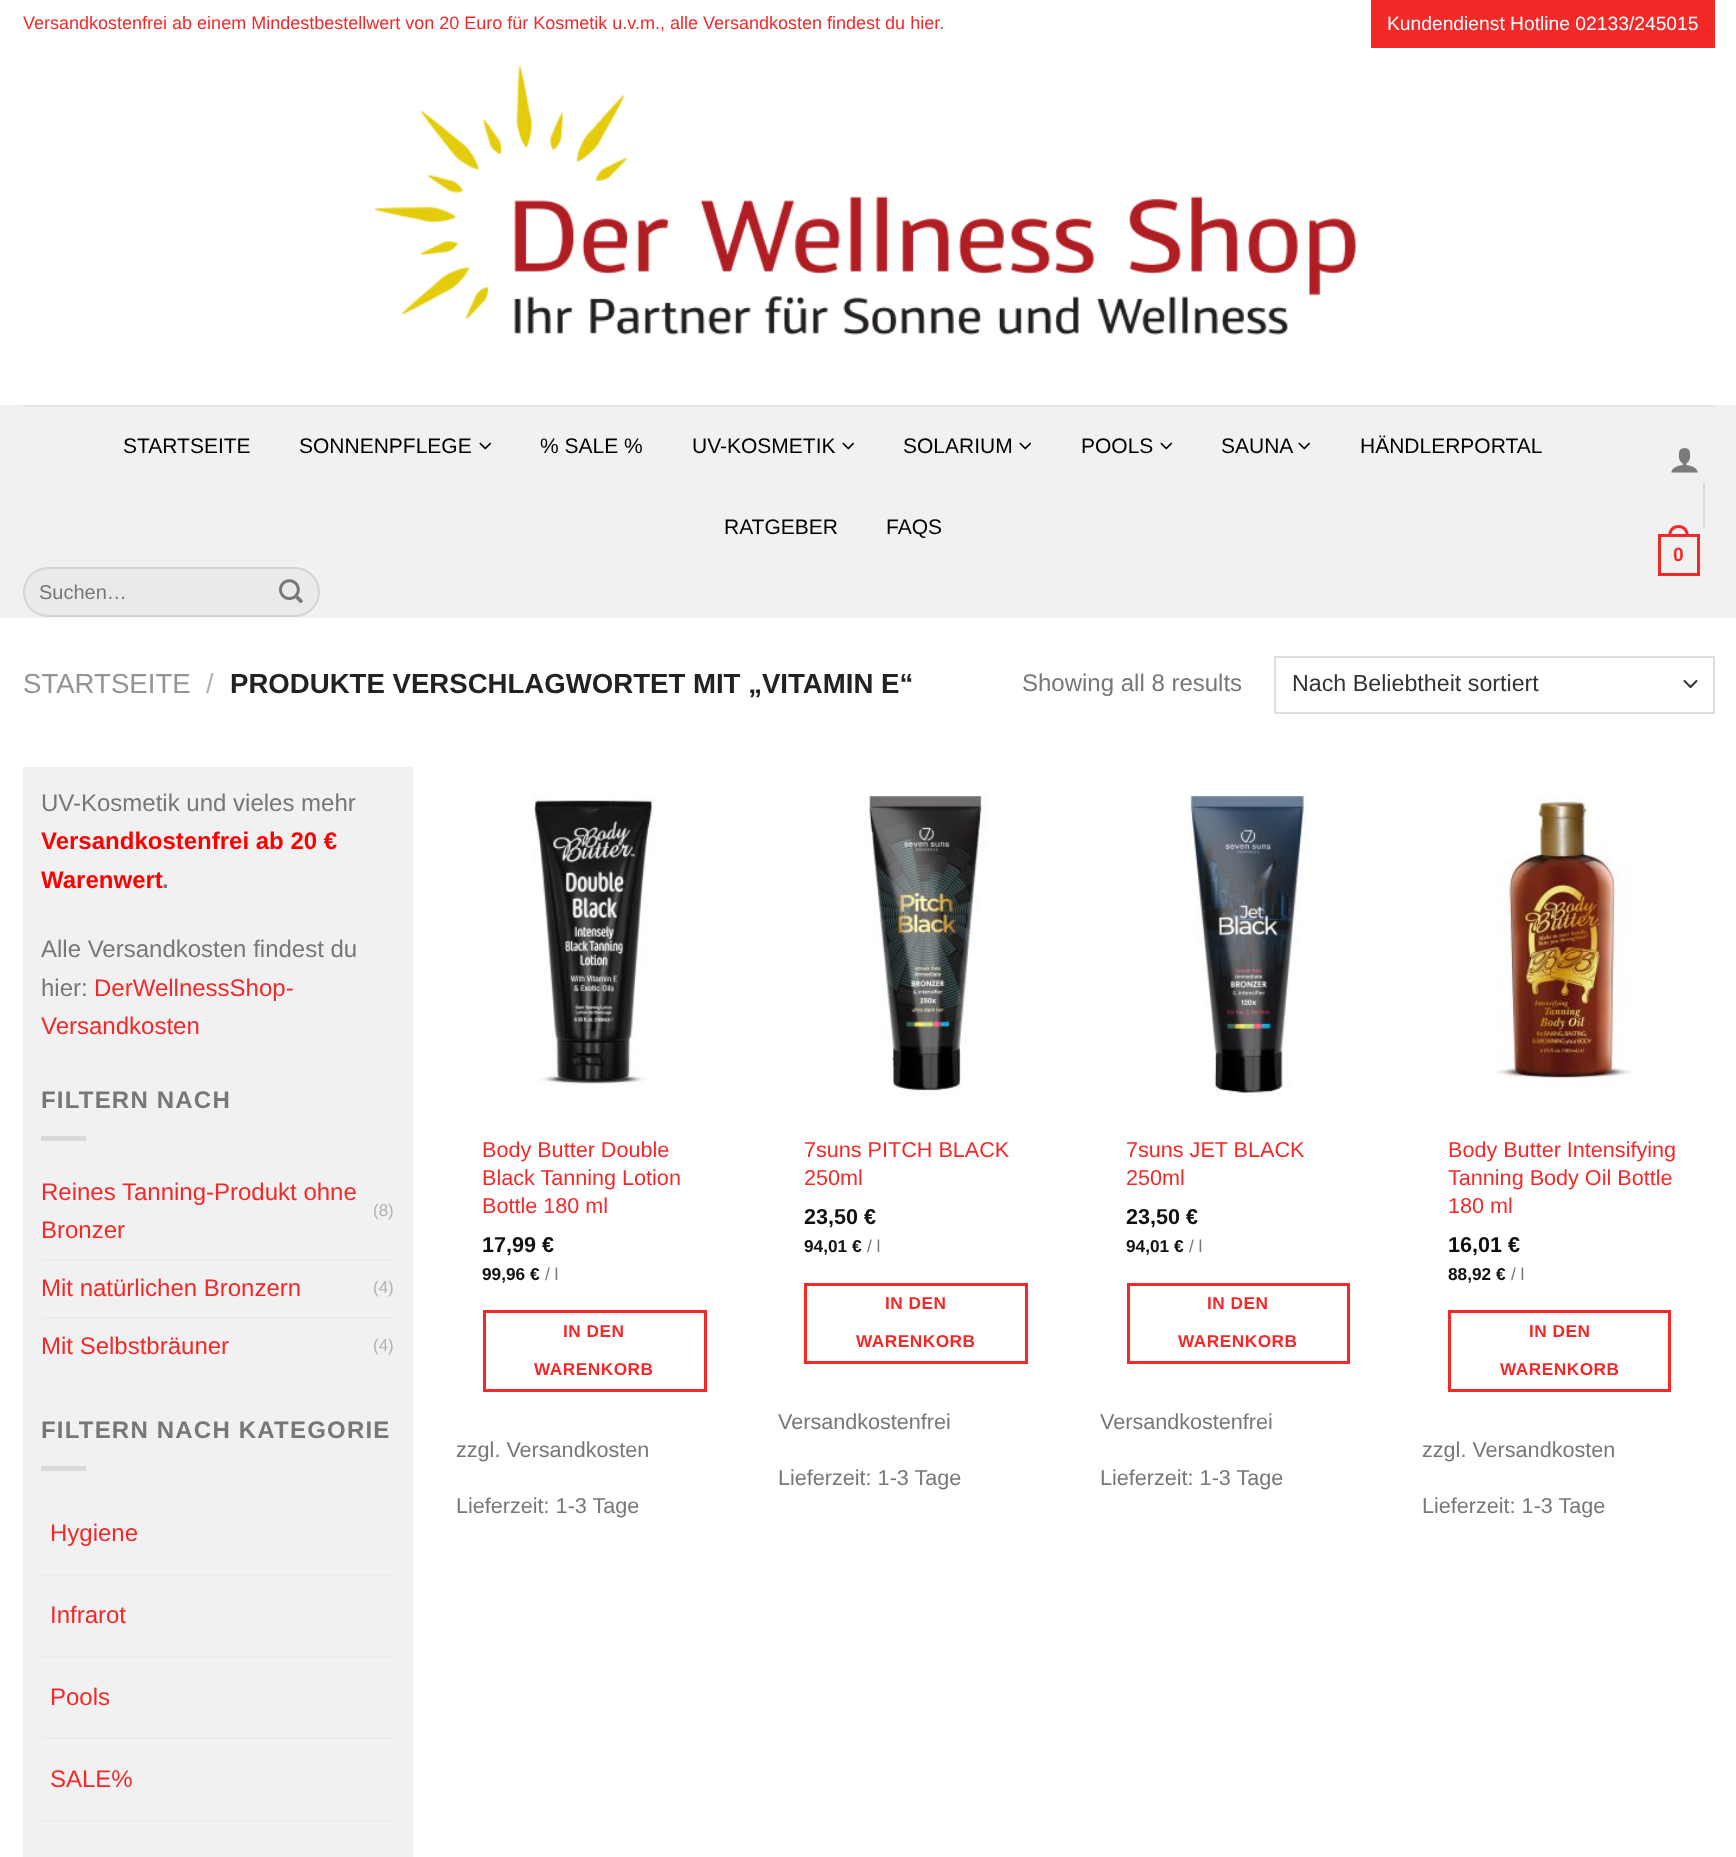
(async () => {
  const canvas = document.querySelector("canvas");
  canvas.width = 1736;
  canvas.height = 1857;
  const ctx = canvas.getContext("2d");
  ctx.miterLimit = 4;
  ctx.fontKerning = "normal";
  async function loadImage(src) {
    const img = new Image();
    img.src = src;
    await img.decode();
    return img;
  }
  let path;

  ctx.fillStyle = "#ffffff";
  ctx.fillRect(0, 0, 1736, 1857);
  ctx.fillStyle = "#f32929";
  ctx.fillRect(1371, 0, 344, 48);
  ctx.drawImage(await loadImage("img/1.png"), 374, 66, 982, 269);
  ctx.fillStyle = "#f1f1f1";
  ctx.fillRect(0, 405, 1736, 213);
  ctx.fillStyle = "#e5e5e5";
  ctx.fillRect(23, 405, 1692, 2);
  ctx.drawImage(await loadImage("img/2.png"), 479, 442, 13, 8);
  ctx.drawImage(await loadImage("img/2.png"), 842, 442, 13, 8);
  ctx.drawImage(await loadImage("img/2.png"), 1019, 442, 13, 8);
  ctx.drawImage(await loadImage("img/2.png"), 1160, 442, 13, 8);
  ctx.drawImage(await loadImage("img/2.png"), 1298, 442, 13, 8);
  ctx.fillStyle = "#eaeaea";
  ctx.beginPath();
  ctx.roundRect(23, 567, 297, 50, 25);
  ctx.fill();
  ctx.beginPath();
  ctx.roundRect(24, 568, 295, 48, 24);
  ctx.strokeStyle = "rgba(0, 0, 0, 0.09)";
  ctx.lineWidth = 2;
  ctx.stroke();
  ctx.drawImage(await loadImage("img/3.png"), 279, 579, 24, 24);
  ctx.drawImage(await loadImage("img/4.png"), 1671, 448, 27, 25);
  ctx.fillStyle = "#d9d9d9";
  ctx.fillRect(1703, 483, 2, 45);
  ctx.strokeStyle = "#f32929";
  ctx.lineWidth = 3;
  ctx.strokeRect(1659.5, 535.5, 39, 39);
  ctx.fillStyle = "#f32929";
  path = new Path2D("M1678.5 525C1685.5 525 1689 530.5 1689 537H1668C1668 530.5 1671.5 525 1678.5 525ZM1678.5 528C1684 528 1686 532.5 1686 537H1671C1671 532.5 1673 528 1678.5 528Z");
  ctx.fill(path, "evenodd");
  path = new Path2D("M1684.5 681L1690.5 687L1696.5 681");
  ctx.strokeStyle = "#333333";
  ctx.lineWidth = 2;
  ctx.lineCap = "round";
  ctx.lineJoin = "round";
  ctx.stroke(path);
  ctx.strokeStyle = "#dddddd";
  ctx.lineJoin = "miter";
  ctx.strokeRect(1275, 657, 439, 56);
  for (const [x, y, w, h, color] of [
    [23, 767, 390, 1090, "#f1f1f1"],
    [41, 1136, 45, 5, "#d9d9d9"],
    [41, 1259, 354, 2, "#ececec"],
    [41, 1317, 354, 2, "#ececec"],
    [41, 1466, 45, 5, "#d9d9d9"],
    [41, 1574, 354, 2, "#ececec"],
    [41, 1656, 354, 2, "#ececec"],
    [41, 1737, 354, 2, "#ececec"],
    [41, 1820, 354, 2, "#ececec"],
  ]) {
    ctx.fillStyle = color;
    ctx.fillRect(x, y, w, h);
  }
  ctx.drawImage(await loadImage("img/5.png"), 532, 795, 123, 290);
  ctx.strokeStyle = "#f32929";
  ctx.lineWidth = 3;
  ctx.strokeRect(484.5, 1311.5, 221, 79);
  ctx.drawImage(await loadImage("img/6.png"), 864, 795, 123, 302);
  ctx.strokeRect(805.5, 1284.5, 221, 78);
  ctx.drawImage(await loadImage("img/7.png"), 1186, 790, 124, 307);
  ctx.strokeRect(1128.5, 1284.5, 220, 78);
  ctx.drawImage(await loadImage("img/8.png"), 1495, 796, 139, 290);
  ctx.strokeRect(1449.5, 1311.5, 220, 79);
  ctx.font = "18px Liberation Sans";
  ctx.fillStyle = "#f32929";
  ctx.fillText("Versandkostenfrei ab einem Mindestbestellwert von 20 Euro für Kosmetik u.v.m., alle Versandkosten findest du hier.", 23, 29);
  ctx.font = "19.25px Liberation Sans";
  ctx.fillStyle = "#ffffff";
  ctx.fillText("Kundendienst Hotline 02133/245015", 1387, 30);
  ctx.font = "21px Liberation Sans";
  ctx.fillStyle = "#000000";
  for (const [text, x, y] of [
    ["STARTSEITE", 123, 453],
    ["SONNENPFLEGE", 299, 453],
    ["% SALE %", 540, 453],
    ["UV-KOSMETIK", 692, 453],
    ["SOLARIUM", 903, 453],
    ["POOLS", 1081, 453],
    ["SAUNA", 1221, 453],
    ["HÄNDLERPORTAL", 1360, 453],
    ["RATGEBER", 724, 534],
    ["FAQS", 886, 534],
  ]) {
    ctx.fillText(text, x, y);
  }
  ctx.font = "20px Liberation Sans";
  ctx.fillStyle = "#777777";
  ctx.fillText("Suchen…", 39, 599);
  ctx.font = "bold 19.25px Liberation Sans";
  ctx.fillStyle = "#f32929";
  ctx.fillText("0", 1673, 561);
  ctx.font = "27.6px Liberation Sans";
  ctx.fillStyle = "#949494";
  ctx.fillText("STARTSEITE", 23, 693);
  ctx.fillStyle = "#b2b2b2";
  ctx.fillText("/", 206, 693);
  ctx.font = "bold 27.6px Liberation Sans";
  ctx.fillStyle = "#222222";
  ctx.fillText("PRODUKTE VERSCHLAGWORTET MIT „VITAMIN E“", 230, 693);
  ctx.font = "24px Liberation Sans";
  ctx.fillStyle = "#777777";
  ctx.fillText("Showing all 8 results", 1022, 691);
  ctx.font = "23.25px Liberation Sans";
  ctx.fillStyle = "#333333";
  ctx.fillText("Nach Beliebtheit sortiert", 1292, 691);
  ctx.font = "24px Liberation Sans";
  ctx.fillStyle = "#777777";
  ctx.fillText("UV-Kosmetik und vieles mehr", 41, 811);
  ctx.font = "bold 24px Liberation Sans";
  ctx.fillStyle = "#ff0000";
  ctx.fillText("Versandkostenfrei ab 20 €", 41, 849);
  ctx.fillText("Warenwert", 41, 888);
  ctx.fillStyle = "#777777";
  ctx.fillText(".", 162, 888);
  ctx.font = "24px Liberation Sans";
  ctx.fillText("Alle Versandkosten findest du", 41, 957);
  ctx.fillText("hier:", 41, 996);
  ctx.fillStyle = "#f32929";
  ctx.fillText("DerWellnessShop-", 94, 996);
  ctx.fillText("Versandkosten", 41, 1034);
  ctx.letterSpacing = "1.2px";
  ctx.font = "bold 24px Liberation Sans";
  ctx.fillStyle = "#777777";
  ctx.fillText("FILTERN NACH", 41, 1108);
  ctx.letterSpacing = "0px";
  ctx.font = "24px Liberation Sans";
  ctx.fillStyle = "#f32929";
  ctx.fillText("Reines Tanning-Produkt ohne", 41, 1200);
  ctx.fillText("Bronzer", 41, 1238);
  ctx.font = "17px Liberation Sans";
  ctx.fillStyle = "#b2b2b2";
  ctx.fillText("(8)", 373, 1216);
  ctx.font = "24px Liberation Sans";
  ctx.fillStyle = "#f32929";
  ctx.fillText("Mit natürlichen Bronzern", 41, 1296);
  ctx.font = "17px Liberation Sans";
  ctx.fillStyle = "#b2b2b2";
  ctx.fillText("(4)", 373, 1293);
  ctx.font = "24px Liberation Sans";
  ctx.fillStyle = "#f32929";
  ctx.fillText("Mit Selbstbräuner", 41, 1354);
  ctx.font = "17px Liberation Sans";
  ctx.fillStyle = "#b2b2b2";
  ctx.fillText("(4)", 373, 1351);
  ctx.letterSpacing = "1.2px";
  ctx.font = "bold 24px Liberation Sans";
  ctx.fillStyle = "#777777";
  ctx.fillText("FILTERN NACH KATEGORIE", 41, 1438);
  ctx.letterSpacing = "0px";
  ctx.font = "24px Liberation Sans";
  ctx.fillStyle = "#f32929";
  for (const [text, x, y] of [
    ["Hygiene", 50, 1541],
    ["Infrarot", 50, 1623],
    ["Pools", 50, 1705],
    ["SALE%", 50, 1787],
  ]) {
    ctx.fillText(text, x, y);
  }
  ctx.font = "21.6px Liberation Sans";
  for (const [text, x, y] of [
    ["Body Butter Double", 482, 1157],
    ["Black Tanning Lotion", 482, 1185],
    ["Bottle 180 ml", 482, 1213],
  ]) {
    ctx.fillText(text, x, y);
  }
  ctx.font = "bold 21.6px Liberation Sans";
  ctx.fillStyle = "#111111";
  ctx.fillText("17,99 €", 482, 1252);
  ctx.font = "bold 17.25px Liberation Sans";
  ctx.fillText("99,96 €", 482, 1280);
  ctx.font = "17.25px Liberation Sans";
  ctx.fillStyle = "#777777";
  ctx.fillText("/ l", 545, 1280);
  ctx.letterSpacing = "0.5px";
  ctx.font = "bold 17.25px Liberation Sans";
  ctx.fillStyle = "#f32929";
  ctx.fillText("IN DEN", 563, 1337);
  ctx.fillText("WARENKORB", 534, 1375);
  ctx.letterSpacing = "0px";
  ctx.font = "21.6px Liberation Sans";
  ctx.fillStyle = "#777777";
  ctx.fillText("zzgl. Versandkosten", 456, 1457);
  ctx.fillText("Lieferzeit: 1-3 Tage", 456, 1513);
  ctx.fillStyle = "#f32929";
  ctx.fillText("7suns PITCH BLACK", 804, 1157);
  ctx.fillText("250ml", 804, 1185);
  ctx.font = "bold 21.6px Liberation Sans";
  ctx.fillStyle = "#111111";
  ctx.fillText("23,50 €", 804, 1224);
  ctx.font = "bold 17.25px Liberation Sans";
  ctx.fillText("94,01 €", 804, 1252);
  ctx.font = "17.25px Liberation Sans";
  ctx.fillStyle = "#777777";
  ctx.fillText("/ l", 867, 1252);
  ctx.letterSpacing = "0.5px";
  ctx.font = "bold 17.25px Liberation Sans";
  ctx.fillStyle = "#f32929";
  ctx.fillText("IN DEN", 885, 1309);
  ctx.fillText("WARENKORB", 856, 1347);
  ctx.letterSpacing = "0px";
  ctx.font = "21.6px Liberation Sans";
  ctx.fillStyle = "#777777";
  ctx.fillText("Versandkostenfrei", 778, 1429);
  ctx.fillText("Lieferzeit: 1-3 Tage", 778, 1485);
  ctx.fillStyle = "#f32929";
  ctx.fillText("7suns JET BLACK", 1126, 1157);
  ctx.fillText("250ml", 1126, 1185);
  ctx.font = "bold 21.6px Liberation Sans";
  ctx.fillStyle = "#111111";
  ctx.fillText("23,50 €", 1126, 1224);
  ctx.font = "bold 17.25px Liberation Sans";
  ctx.fillText("94,01 €", 1126, 1252);
  ctx.font = "17.25px Liberation Sans";
  ctx.fillStyle = "#777777";
  ctx.fillText("/ l", 1189, 1252);
  ctx.letterSpacing = "0.5px";
  ctx.font = "bold 17.25px Liberation Sans";
  ctx.fillStyle = "#f32929";
  ctx.fillText("IN DEN", 1207, 1309);
  ctx.fillText("WARENKORB", 1178, 1347);
  ctx.letterSpacing = "0px";
  ctx.font = "21.6px Liberation Sans";
  ctx.fillStyle = "#777777";
  ctx.fillText("Versandkostenfrei", 1100, 1429);
  ctx.fillText("Lieferzeit: 1-3 Tage", 1100, 1485);
  ctx.fillStyle = "#f32929";
  for (const [text, x, y] of [
    ["Body Butter Intensifying", 1448, 1157],
    ["Tanning Body Oil Bottle", 1448, 1185],
    ["180 ml", 1448, 1213],
  ]) {
    ctx.fillText(text, x, y);
  }
  ctx.font = "bold 21.6px Liberation Sans";
  ctx.fillStyle = "#111111";
  ctx.fillText("16,01 €", 1448, 1252);
  ctx.font = "bold 17.25px Liberation Sans";
  ctx.fillText("88,92 €", 1448, 1280);
  ctx.font = "17.25px Liberation Sans";
  ctx.fillStyle = "#777777";
  ctx.fillText("/ l", 1511, 1280);
  ctx.letterSpacing = "0.5px";
  ctx.font = "bold 17.25px Liberation Sans";
  ctx.fillStyle = "#f32929";
  ctx.fillText("IN DEN", 1529, 1337);
  ctx.fillText("WARENKORB", 1500, 1375);
  ctx.letterSpacing = "0px";
  ctx.font = "21.6px Liberation Sans";
  ctx.fillStyle = "#777777";
  ctx.fillText("zzgl. Versandkosten", 1422, 1457);
  ctx.fillText("Lieferzeit: 1-3 Tage", 1422, 1513);
})();
